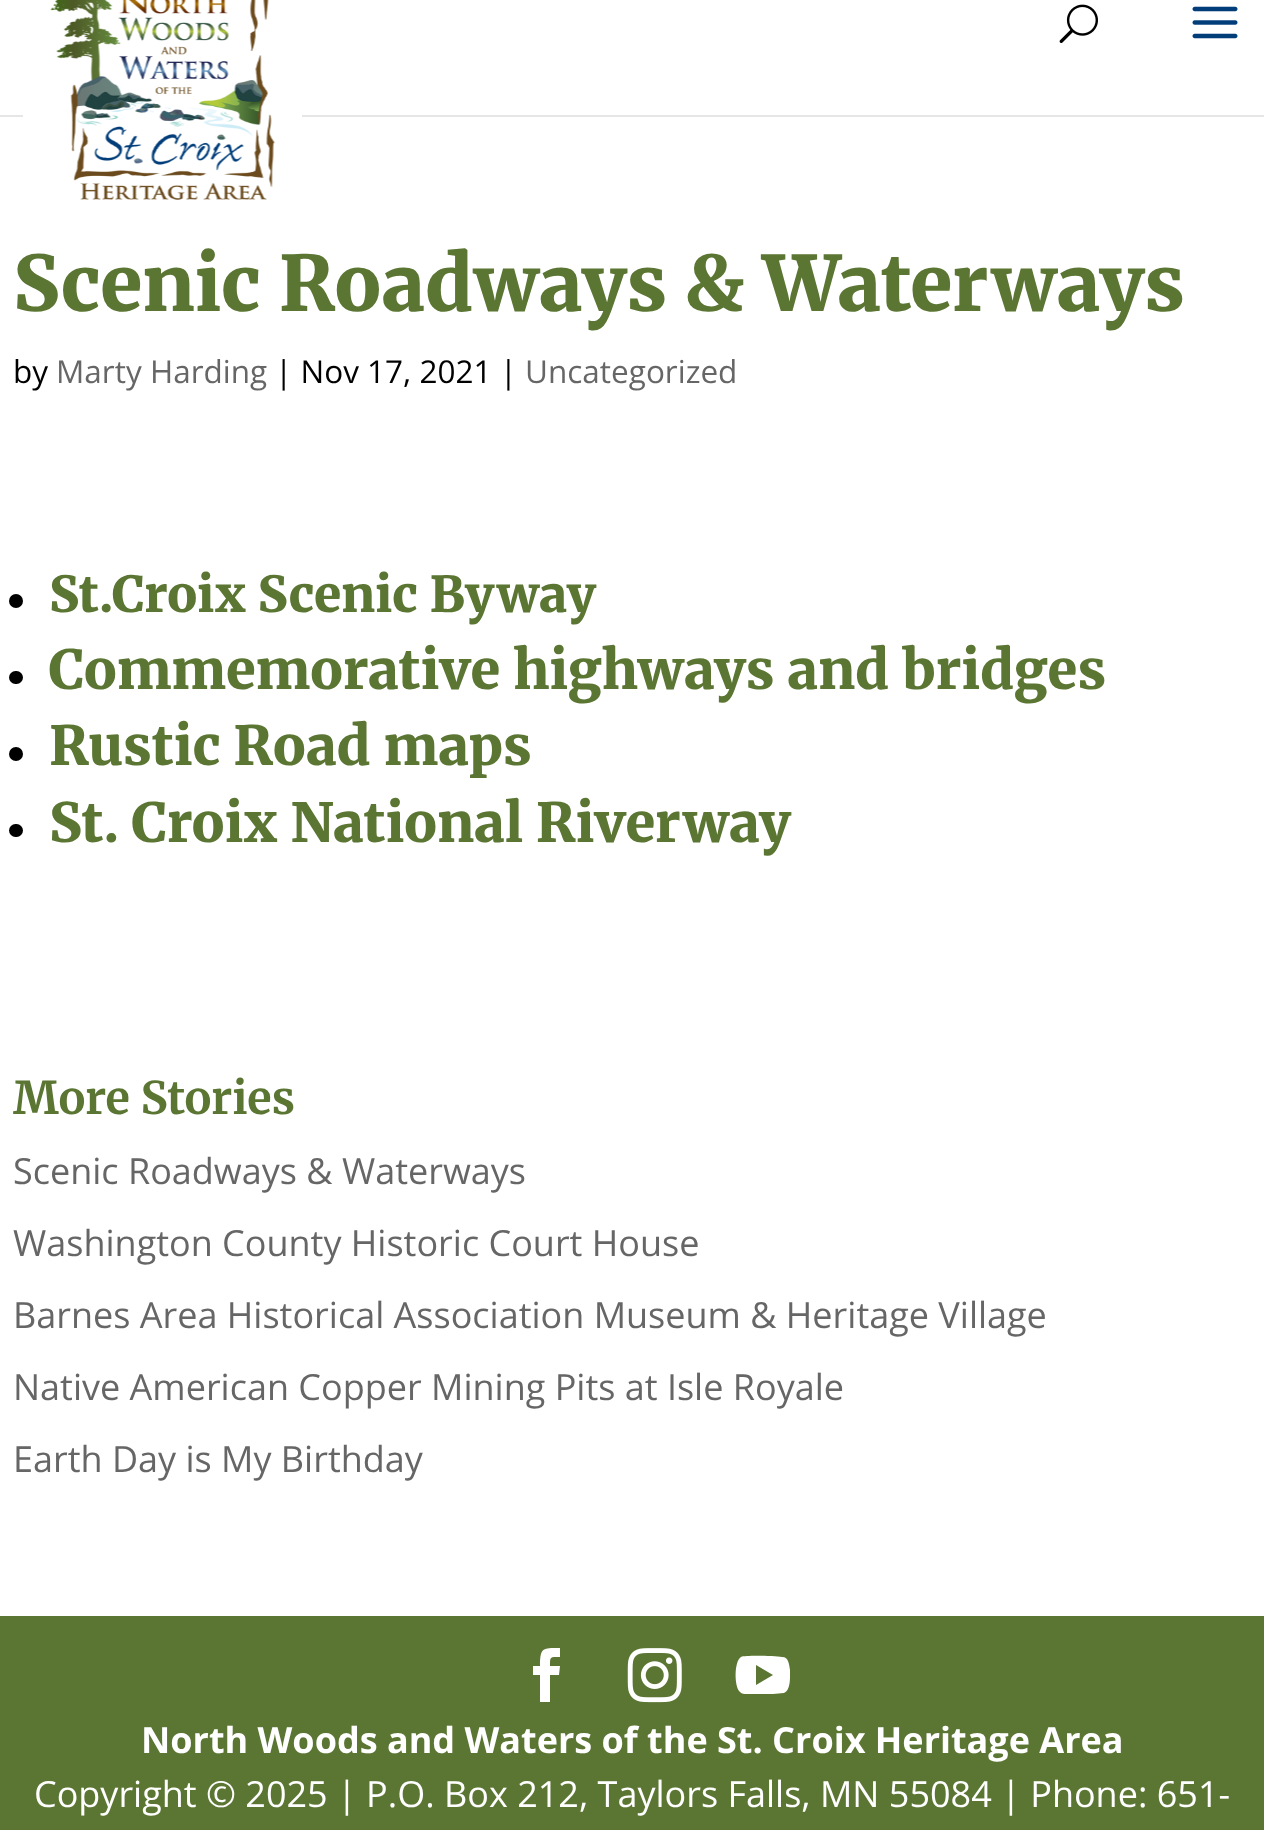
(async () => {
  const canvas = document.querySelector("canvas");
  canvas.width = 1264;
  canvas.height = 1830;
  const ctx = canvas.getContext("2d");
  ctx.miterLimit = 4;
  ctx.fontKerning = "normal";
  async function loadImage(src) {
    const img = new Image();
    img.src = src;
    await img.decode();
    return img;
  }
  let path;

  ctx.fillStyle = "#ffffff";
  ctx.fillRect(0, 0, 1264, 1830);
  ctx.fillStyle = "#e6e6e6";
  path = new Path2D("M0 115V117H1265V-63H1264V115Z");
  ctx.fill(path);
  ctx.fillStyle = "#ffffff";
  ctx.fillRect(23, 115, 279, 2);
  ctx.drawImage(await loadImage("img/1.png"), 50, 0, 225, 200);
  ctx.drawImage(await loadImage("img/2.png"), 1059, 4, 39, 39);
  ctx.drawImage(await loadImage("img/3.png"), 1192, 6, 46, 33);
  ctx.fillStyle = "#000000";
  ctx.beginPath();
  ctx.arc(16, 601, 7, 0, Math.PI * 2);
  ctx.fill();
  ctx.beginPath();
  ctx.roundRect(9, 671, 14, 13, 6.5);
  ctx.fill();
  ctx.beginPath();
  ctx.arc(16, 754, 7, 0, Math.PI * 2);
  ctx.fill();
  ctx.beginPath();
  ctx.roundRect(9, 824, 14, 13, 6.5);
  ctx.fill();
  ctx.fillStyle = "#5b7533";
  ctx.fillRect(0, 1616, 1264, 214);
  ctx.fillStyle = "#ffffff";
  path = new Path2D("M540 1702H550V1675H559L560 1666H550C550 1656 550 1657 560 1657V1648C543 1648 540 1647 540 1666H533V1675H540Z");
  ctx.fill(path);
  ctx.drawImage(await loadImage("img/4.png"), 627, 1648, 55, 55);
  path = new Path2D("M782 1657C775 1656 746 1655 741 1657C734 1661 734 1687 740 1692C742 1694 744 1694 747 1694H773L784 1693C791 1690 790 1677 790 1670C789 1665 789 1657 782 1657ZM756 1685V1665L773 1675Z");
  ctx.fill(path);
  ctx.font = "900 76.5px Merriweather";
  ctx.fillStyle = "#5b7533";
  ctx.fillText("Scenic Roadways & Waterways", 13, 311);
  ctx.font = "31.5px Open Sans";
  ctx.fillStyle = "#000000";
  ctx.fillText("by", 13, 383);
  ctx.fillStyle = "#666666";
  ctx.fillText("Marty Harding", 56, 383);
  ctx.fillStyle = "#000000";
  ctx.fillText("| Nov 17, 2021 |", 275, 383);
  ctx.fillStyle = "#666666";
  ctx.fillText("Uncategorized", 525, 383);
  ctx.font = "900 49.5px Merriweather";
  ctx.fillStyle = "#5b7533";
  ctx.fillText("St.Croix Scenic Byway", 49, 612);
  ctx.font = "900 54px Merriweather";
  for (const [text, x, y] of [
    ["Commemorative highways and bridges", 49, 689],
    ["Rustic Road maps", 49, 765],
    ["St. Croix National Riverway", 49, 842],
  ]) {
    ctx.fillText(text, x, y);
  }
  ctx.font = "bold 45px Merriweather";
  ctx.fillText("More Stories", 13, 1114);
  ctx.font = "36px Open Sans";
  ctx.fillStyle = "#666666";
  for (const [text, x, y] of [
    ["Scenic Roadways & Waterways", 13, 1184],
    ["Washington County Historic Court House", 13, 1256],
    ["Barnes Area Historical Association Museum & Heritage Village", 13, 1328],
    ["Native American Copper Mining Pits at Isle Royale", 13, 1400],
    ["Earth Day is My Birthday", 13, 1472],
  ]) {
    ctx.fillText(text, x, y);
  }
  ctx.font = "bold 36px Open Sans";
  ctx.fillStyle = "#ffffff";
  ctx.fillText("North Woods and Waters of the St. Croix Heritage Area", 141, 1753);
  ctx.font = "36px Open Sans";
  ctx.fillText("Copyright © 2025 | P.O. Box 212, Taylors Falls, MN 55084 | Phone: 651-", 34, 1807);
})();
